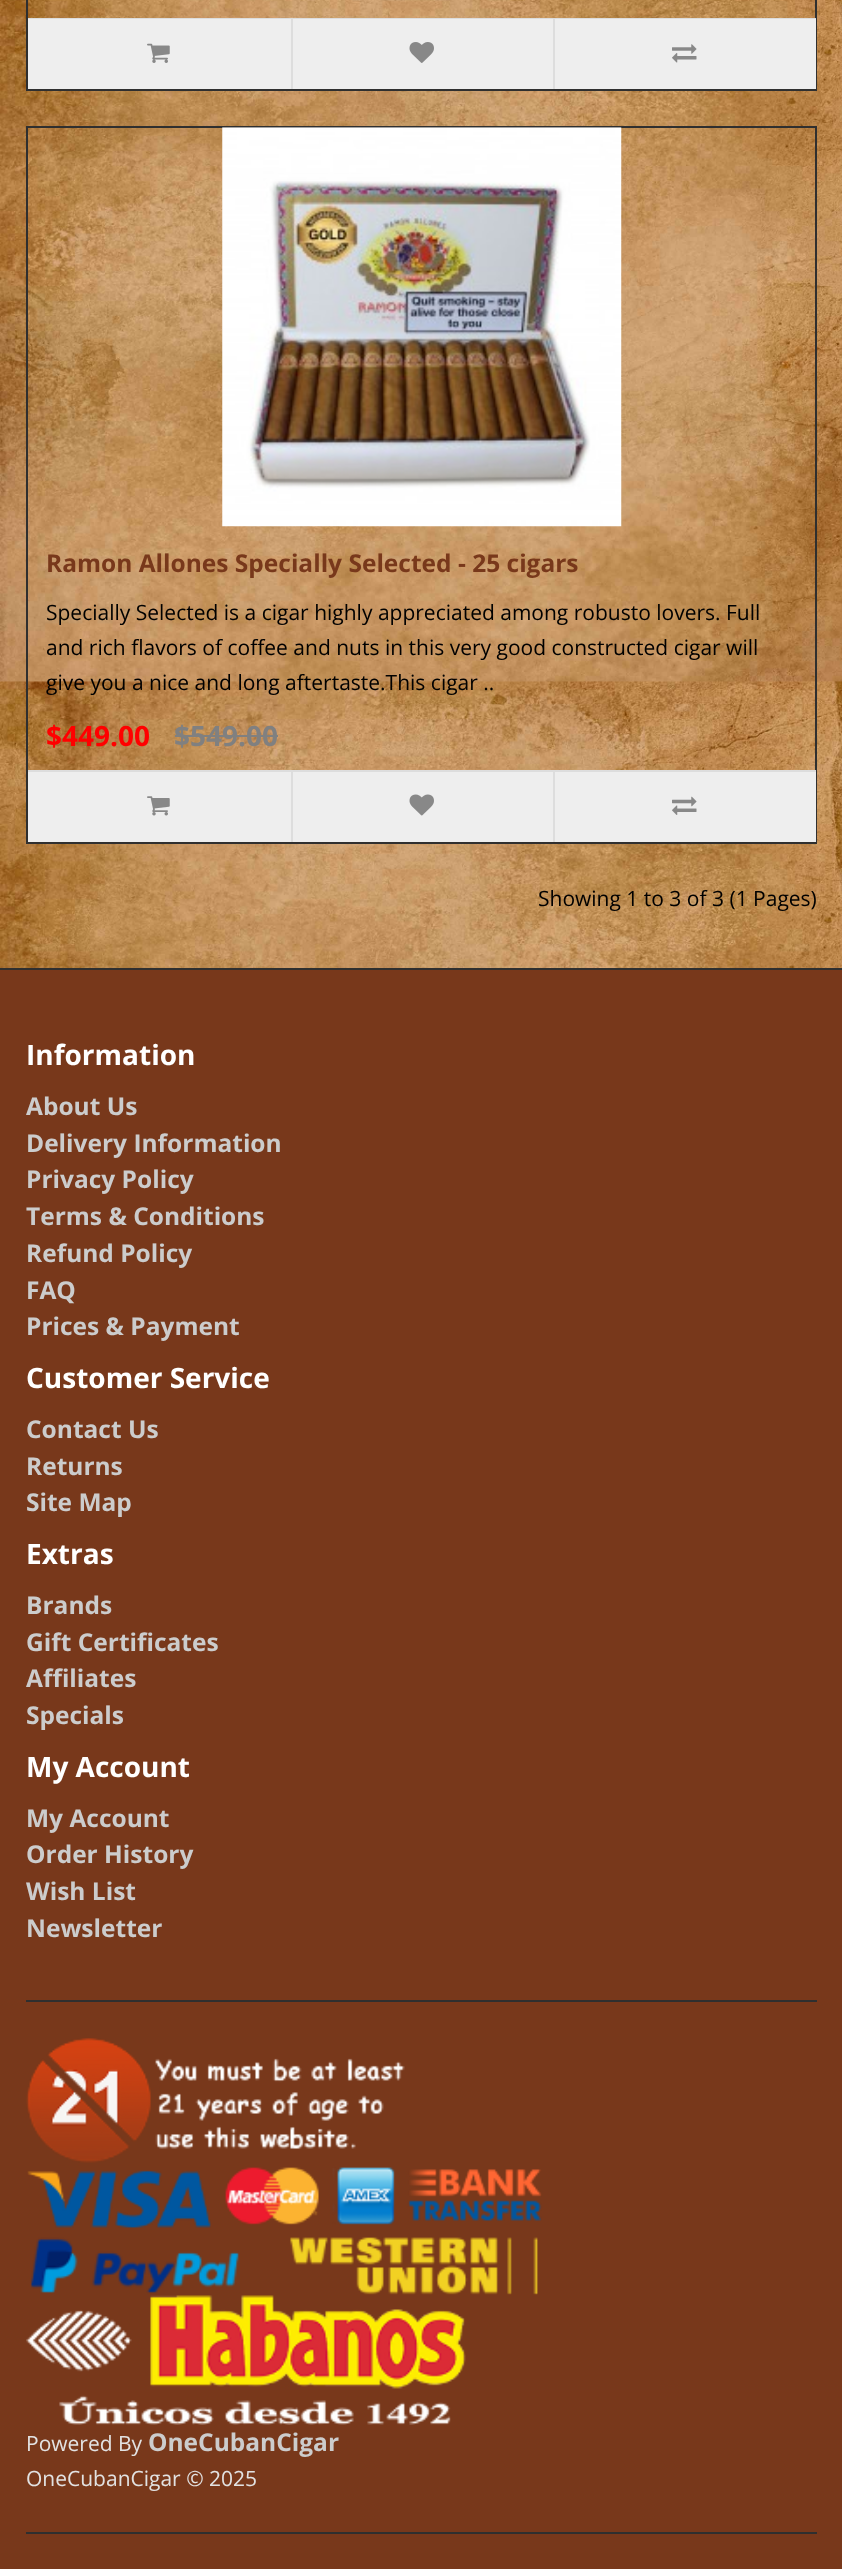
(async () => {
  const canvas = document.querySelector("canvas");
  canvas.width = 842;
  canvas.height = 2569;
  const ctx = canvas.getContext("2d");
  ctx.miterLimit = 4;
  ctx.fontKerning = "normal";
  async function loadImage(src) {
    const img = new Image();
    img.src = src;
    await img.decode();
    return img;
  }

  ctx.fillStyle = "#ffffff";
  ctx.fillRect(0, 0, 842, 2569);
  ctx.drawImage(await loadImage("img/1.png"), 0, 0, 842, 968);
  ctx.strokeStyle = "#2f2f2f";
  ctx.lineWidth = 2;
  ctx.strokeRect(27, -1, 789, 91);
  ctx.fillStyle = "#dddddd";
  ctx.fillRect(28, 18, 788, 1);
  ctx.fillStyle = "#eeeeee";
  ctx.fillRect(28, 19, 263, 70);
  ctx.drawImage(await loadImage("img/2.png"), 147, 43, 23, 20);
  ctx.fillRect(293, 19, 260, 70);
  ctx.fillStyle = "#dddddd";
  ctx.fillRect(291, 19, 2, 70);
  ctx.drawImage(await loadImage("img/3.png"), 409, 42, 25, 21);
  ctx.fillStyle = "#eeeeee";
  ctx.fillRect(555, 19, 261, 70);
  ctx.fillStyle = "#dddddd";
  ctx.fillRect(553, 19, 2, 70);
  ctx.drawImage(await loadImage("img/4.png"), 672, 44, 25, 19);
  ctx.strokeRect(27, 127, 789, 716);
  ctx.drawImage(await loadImage("img/5.png"), 222, 127, 400, 400);
  for (const [x, y, w, h, color] of [
    [175, 735, 103, 2, "#808080"],
    [28, 772, 788, 70, "#eeeeee"],
    [28, 770, 788, 2, "#dddddd"],
  ]) {
    ctx.fillStyle = color;
    ctx.fillRect(x, y, w, h);
  }
  ctx.drawImage(await loadImage("img/6.png"), 147, 796, 23, 20);
  ctx.fillRect(291, 772, 2, 70);
  ctx.drawImage(await loadImage("img/7.png"), 409, 794, 25, 22);
  ctx.fillRect(553, 772, 2, 70);
  ctx.drawImage(await loadImage("img/8.png"), 672, 796, 25, 19);
  for (const [x, y, w, h, color] of [
    [0, 970, 842, 1599, "#78381b"],
    [0, 968, 842, 2, "#2f2f2f"],
    [26, 2000, 791, 2, "#2f2f2f"],
  ]) {
    ctx.fillStyle = color;
    ctx.fillRect(x, y, w, h);
  }
  ctx.drawImage(await loadImage("img/9.png"), 26, 2038, 379, 125);
  ctx.drawImage(await loadImage("img/10.png"), 27, 2167, 515, 128);
  ctx.drawImage(await loadImage("img/11.png"), 26, 2295, 440, 130);
  ctx.fillRect(26, 2532, 791, 2);
  ctx.font = "bold 24.5px Open Sans";
  ctx.fillStyle = "#78381b";
  ctx.fillText("Ramon Allones Specially Selected - 25 cigars", 46, 572);
  ctx.font = "21px Open Sans";
  ctx.fillStyle = "#000000";
  for (const [text, x, y] of [
    ["Specially Selected is a cigar highly appreciated among robusto lovers. Full", 46, 620],
    ["and rich flavors of coffee and nuts in this very good constructed cigar will", 46, 655],
    ["give you a nice and long aftertaste.This cigar ..", 46, 690],
  ]) {
    ctx.fillText(text, x, y);
  }
  ctx.font = "bold 28px Open Sans";
  ctx.fillStyle = "#ff0000";
  ctx.fillText("$449.00", 46, 746);
  ctx.fillStyle = "#808080";
  ctx.fillText("$549.00", 174, 746);
  ctx.font = "21px Open Sans";
  ctx.fillStyle = "#000000";
  ctx.fillText("Showing 1 to 3 of 3 (1 Pages)", 538, 906);
  ctx.font = "bold 28px Open Sans";
  ctx.fillStyle = "#ffffff";
  ctx.fillText("Information", 26, 1065);
  ctx.font = "bold 24.5px Open Sans";
  ctx.fillStyle = "#cccccc";
  for (const [text, x, y] of [
    ["About Us", 26, 1115],
    ["Delivery Information", 26, 1152],
    ["Privacy Policy", 26, 1188],
    ["Terms & Conditions", 26, 1225],
    ["Refund Policy", 26, 1262],
    ["FAQ", 26, 1299],
    ["Prices & Payment", 26, 1335],
  ]) {
    ctx.fillText(text, x, y);
  }
  ctx.font = "bold 28px Open Sans";
  ctx.fillStyle = "#ffffff";
  ctx.fillText("Customer Service", 26, 1388);
  ctx.font = "bold 24.5px Open Sans";
  ctx.fillStyle = "#cccccc";
  for (const [text, x, y] of [
    ["Contact Us", 26, 1438],
    ["Returns", 26, 1475],
    ["Site Map", 26, 1511],
  ]) {
    ctx.fillText(text, x, y);
  }
  ctx.font = "bold 28px Open Sans";
  ctx.fillStyle = "#ffffff";
  ctx.fillText("Extras", 26, 1564);
  ctx.font = "bold 24.5px Open Sans";
  ctx.fillStyle = "#cccccc";
  for (const [text, x, y] of [
    ["Brands", 26, 1614],
    ["Gift Certificates", 26, 1651],
    ["Affiliates", 26, 1687],
    ["Specials", 26, 1724],
  ]) {
    ctx.fillText(text, x, y);
  }
  ctx.font = "bold 28px Open Sans";
  ctx.fillStyle = "#ffffff";
  ctx.fillText("My Account", 26, 1777);
  ctx.font = "bold 24.5px Open Sans";
  ctx.fillStyle = "#cccccc";
  for (const [text, x, y] of [
    ["My Account", 26, 1827],
    ["Order History", 26, 1863],
    ["Wish List", 26, 1900],
    ["Newsletter", 26, 1937],
  ]) {
    ctx.fillText(text, x, y);
  }
  ctx.font = "21px Open Sans";
  ctx.fillStyle = "#e2e2e2";
  ctx.fillText("Powered By", 26, 2451);
  ctx.font = "bold 24.5px Open Sans";
  ctx.fillStyle = "#cccccc";
  ctx.fillText("OneCubanCigar", 148, 2451);
  ctx.font = "21px Open Sans";
  ctx.fillStyle = "#e2e2e2";
  ctx.fillText("OneCubanCigar © 2025", 26, 2486);
})();
